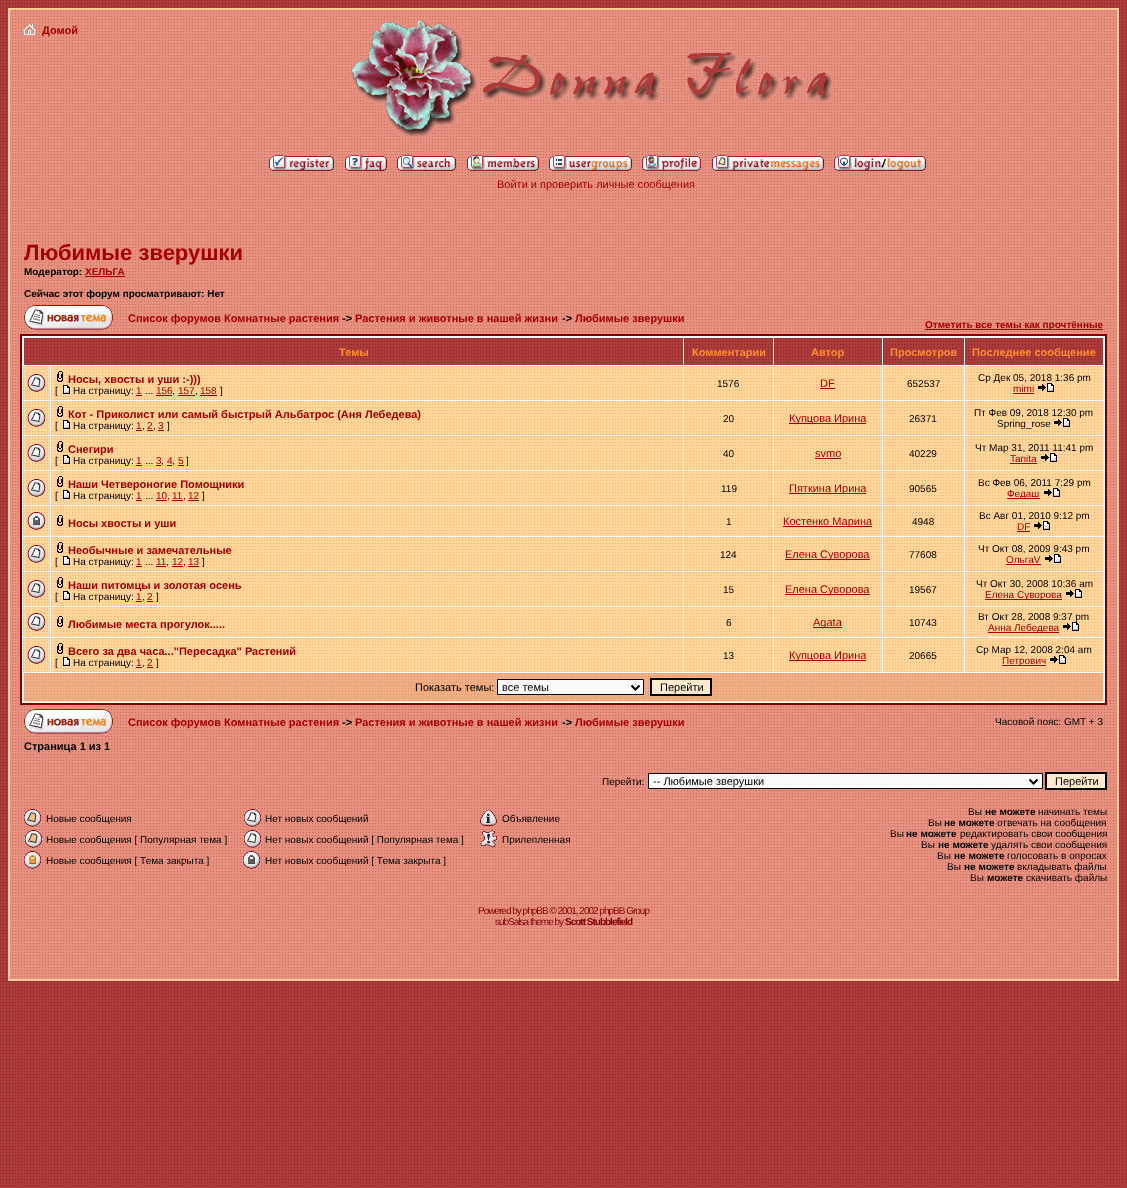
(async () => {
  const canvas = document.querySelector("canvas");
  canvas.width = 1127;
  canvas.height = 1188;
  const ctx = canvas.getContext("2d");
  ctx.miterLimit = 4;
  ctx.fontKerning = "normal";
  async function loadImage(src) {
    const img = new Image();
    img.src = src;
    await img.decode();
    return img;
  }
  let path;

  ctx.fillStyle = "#ffffff";
  ctx.fillRect(0, 0, 1127, 1188);
  ctx.drawImage(await loadImage("img/1.png"), 0, 0, 1127, 1188);
  ctx.drawImage(await loadImage("img/2.png"), 10, 10, 1107, 969);
  ctx.strokeStyle = "#ffcc99";
  ctx.lineWidth = 2;
  ctx.strokeRect(9, 9, 1109, 971);
  ctx.drawImage(await loadImage("img/3.png"), 23, 24, 13, 11);
  ctx.drawImage(await loadImage("img/4.png"), 351, 20, 484, 118);
  ctx.drawImage(await loadImage("img/5.png"), 269, 155, 65, 16);
  ctx.drawImage(await loadImage("img/6.png"), 345, 155, 42, 16);
  ctx.drawImage(await loadImage("img/7.png"), 397, 155, 59, 16);
  ctx.drawImage(await loadImage("img/8.png"), 467, 155, 72, 16);
  ctx.drawImage(await loadImage("img/9.png"), 549, 155, 83, 16);
  ctx.drawImage(await loadImage("img/10.png"), 642, 155, 59, 16);
  ctx.drawImage(await loadImage("img/11.png"), 712, 155, 112, 16);
  ctx.drawImage(await loadImage("img/12.png"), 834, 155, 92, 16);
  ctx.fillStyle = "#a50101";
  ctx.fillRect(85, 276, 40, 1);
  ctx.drawImage(await loadImage("img/13.png"), 24, 305, 89, 25);
  ctx.fillRect(925, 329, 178, 1);
  ctx.fillStyle = "#fafafa";
  ctx.beginPath();
  ctx.rect(21, 335, 1085, 369);
  ctx.fill();
  ctx.strokeStyle = "#800000";
  ctx.stroke();
  ctx.drawImage(await loadImage("img/14.png"), 24, 338, 659, 27);
  ctx.drawImage(await loadImage("img/15.png"), 684, 338, 89, 27);
  ctx.drawImage(await loadImage("img/16.png"), 774, 338, 108, 27);
  ctx.drawImage(await loadImage("img/17.png"), 883, 338, 81, 27);
  ctx.drawImage(await loadImage("img/18.png"), 965, 338, 138, 27);
  ctx.drawImage(await loadImage("img/19.png"), 23, 366, 27, 34);
  ctx.drawImage(await loadImage("img/20.png"), 27, 374, 19, 18);
  ctx.drawImage(await loadImage("img/21.png"), 51, 366, 632, 34);
  ctx.drawImage(await loadImage("img/22.png"), 57, 371, 6, 11);
  for (const [x, y, w, h, color] of [
    [136, 395, 6, 1, "#a50101"],
    [156, 395, 16, 1, "#a50101"],
    [178, 395, 17, 1, "#a50101"],
    [200, 395, 17, 1, "#a50101"],
  ]) {
    ctx.fillStyle = color;
    ctx.fillRect(x, y, w, h);
  }
  ctx.drawImage(await loadImage("img/24.png"), 684, 366, 89, 34);
  ctx.drawImage(await loadImage("img/25.png"), 774, 366, 108, 34);
  ctx.fillRect(820, 388, 15, 1);
  ctx.drawImage(await loadImage("img/26.png"), 883, 366, 81, 34);
  ctx.drawImage(await loadImage("img/27.png"), 965, 366, 138, 34);
  ctx.fillStyle = "#fee9d1";
  ctx.fillRect(1103, 366, 1, 34);
  ctx.fillStyle = "#a50101";
  ctx.fillRect(1013, 393, 21, 1);
  ctx.drawImage(await loadImage("img/19.png"), 23, 401, 27, 34);
  ctx.drawImage(await loadImage("img/29.png"), 27, 409, 19, 18);
  ctx.drawImage(await loadImage("img/21.png"), 51, 401, 632, 34);
  ctx.drawImage(await loadImage("img/22.png"), 57, 406, 6, 11);
  for (const [x, y, w, h, color] of [
    [136, 430, 6, 1, "#a50101"],
    [147, 430, 6, 1, "#a50101"],
    [158, 430, 6, 1, "#a50101"],
  ]) {
    ctx.fillStyle = color;
    ctx.fillRect(x, y, w, h);
  }
  ctx.drawImage(await loadImage("img/24.png"), 684, 401, 89, 34);
  ctx.drawImage(await loadImage("img/25.png"), 774, 401, 108, 34);
  ctx.fillRect(789, 423, 77, 1);
  ctx.drawImage(await loadImage("img/26.png"), 883, 401, 81, 34);
  ctx.drawImage(await loadImage("img/27.png"), 965, 401, 138, 34);
  ctx.fillStyle = "#fee9d1";
  ctx.fillRect(1103, 401, 1, 34);
  ctx.drawImage(await loadImage("img/19.png"), 23, 436, 27, 34);
  ctx.drawImage(await loadImage("img/20.png"), 27, 444, 19, 18);
  ctx.drawImage(await loadImage("img/21.png"), 51, 436, 632, 34);
  ctx.drawImage(await loadImage("img/22.png"), 57, 441, 6, 11);
  for (const [x, y, w, h, color] of [
    [136, 465, 6, 1, "#a50101"],
    [156, 465, 5, 1, "#a50101"],
    [167, 465, 5, 1, "#a50101"],
    [178, 465, 6, 1, "#a50101"],
  ]) {
    ctx.fillStyle = color;
    ctx.fillRect(x, y, w, h);
  }
  ctx.drawImage(await loadImage("img/24.png"), 684, 436, 89, 34);
  ctx.drawImage(await loadImage("img/25.png"), 774, 436, 108, 34);
  ctx.fillRect(815, 458, 26, 1);
  ctx.drawImage(await loadImage("img/26.png"), 883, 436, 81, 34);
  ctx.drawImage(await loadImage("img/27.png"), 965, 436, 138, 34);
  ctx.fillStyle = "#fee9d1";
  ctx.fillRect(1103, 436, 1, 34);
  ctx.fillStyle = "#a50101";
  ctx.fillRect(1010, 463, 27, 1);
  ctx.drawImage(await loadImage("img/19.png"), 23, 471, 27, 34);
  ctx.drawImage(await loadImage("img/20.png"), 27, 479, 19, 18);
  ctx.drawImage(await loadImage("img/21.png"), 51, 471, 632, 34);
  ctx.drawImage(await loadImage("img/22.png"), 57, 476, 6, 11);
  for (const [x, y, w, h, color] of [
    [136, 500, 6, 1, "#a50101"],
    [156, 500, 11, 1, "#a50101"],
    [172, 500, 11, 1, "#a50101"],
    [188, 500, 11, 1, "#a50101"],
  ]) {
    ctx.fillStyle = color;
    ctx.fillRect(x, y, w, h);
  }
  ctx.drawImage(await loadImage("img/24.png"), 684, 471, 89, 34);
  ctx.drawImage(await loadImage("img/25.png"), 774, 471, 108, 34);
  ctx.fillRect(789, 493, 77, 1);
  ctx.drawImage(await loadImage("img/26.png"), 883, 471, 81, 34);
  ctx.drawImage(await loadImage("img/27.png"), 965, 471, 138, 34);
  ctx.fillStyle = "#fee9d1";
  ctx.fillRect(1103, 471, 1, 34);
  ctx.fillStyle = "#a50101";
  ctx.fillRect(1007, 498, 33, 1);
  ctx.drawImage(await loadImage("img/31.png"), 23, 506, 27, 30);
  ctx.drawImage(await loadImage("img/32.png"), 27, 512, 19, 18);
  ctx.drawImage(await loadImage("img/33.png"), 51, 506, 632, 30);
  ctx.drawImage(await loadImage("img/34.png"), 57, 515, 6, 11);
  ctx.drawImage(await loadImage("img/35.png"), 684, 506, 89, 30);
  ctx.drawImage(await loadImage("img/36.png"), 774, 506, 108, 30);
  ctx.fillRect(783, 526, 89, 1);
  ctx.drawImage(await loadImage("img/37.png"), 883, 506, 81, 30);
  ctx.drawImage(await loadImage("img/38.png"), 965, 506, 138, 30);
  ctx.fillStyle = "#fee9d1";
  ctx.fillRect(1103, 506, 1, 30);
  ctx.fillStyle = "#a50101";
  ctx.fillRect(1017, 531, 13, 1);
  ctx.drawImage(await loadImage("img/19.png"), 23, 537, 27, 34);
  ctx.drawImage(await loadImage("img/20.png"), 27, 545, 19, 18);
  ctx.drawImage(await loadImage("img/21.png"), 51, 537, 632, 34);
  ctx.drawImage(await loadImage("img/22.png"), 57, 542, 6, 11);
  ctx.drawImage(await loadImage("img/23.png"), 63, 556, 7, 9);
  for (const [x, y, w, h, color] of [
    [136, 566, 6, 1, "#a50101"],
    [156, 566, 10, 1, "#a50101"],
    [172, 566, 11, 1, "#a50101"],
    [188, 566, 11, 1, "#a50101"],
  ]) {
    ctx.fillStyle = color;
    ctx.fillRect(x, y, w, h);
  }
  ctx.drawImage(await loadImage("img/24.png"), 684, 537, 89, 34);
  ctx.drawImage(await loadImage("img/25.png"), 774, 537, 108, 34);
  ctx.fillRect(785, 559, 85, 1);
  ctx.drawImage(await loadImage("img/26.png"), 883, 537, 81, 34);
  ctx.drawImage(await loadImage("img/27.png"), 965, 537, 138, 34);
  ctx.fillStyle = "#fee9d1";
  ctx.fillRect(1103, 537, 1, 34);
  ctx.fillStyle = "#a50101";
  ctx.fillRect(1006, 564, 35, 1);
  ctx.drawImage(await loadImage("img/19.png"), 23, 572, 27, 34);
  ctx.drawImage(await loadImage("img/29.png"), 27, 580, 19, 18);
  ctx.drawImage(await loadImage("img/21.png"), 51, 572, 632, 34);
  ctx.drawImage(await loadImage("img/22.png"), 57, 577, 6, 11);
  ctx.fillRect(136, 601, 6, 1);
  ctx.fillRect(147, 601, 6, 1);
  ctx.drawImage(await loadImage("img/24.png"), 684, 572, 89, 34);
  ctx.drawImage(await loadImage("img/25.png"), 774, 572, 108, 34);
  ctx.fillRect(785, 594, 85, 1);
  ctx.drawImage(await loadImage("img/26.png"), 883, 572, 81, 34);
  ctx.drawImage(await loadImage("img/27.png"), 965, 572, 138, 34);
  ctx.fillStyle = "#fee9d1";
  ctx.fillRect(1103, 572, 1, 34);
  ctx.fillStyle = "#a50101";
  ctx.fillRect(985, 599, 77, 1);
  ctx.drawImage(await loadImage("img/30.png"), 1066, 589, 16, 9);
  ctx.drawImage(await loadImage("img/31.png"), 23, 607, 27, 30);
  ctx.drawImage(await loadImage("img/40.png"), 27, 613, 19, 18);
  ctx.drawImage(await loadImage("img/33.png"), 51, 607, 632, 30);
  ctx.drawImage(await loadImage("img/34.png"), 57, 616, 6, 11);
  ctx.drawImage(await loadImage("img/35.png"), 684, 607, 89, 30);
  ctx.drawImage(await loadImage("img/36.png"), 774, 607, 108, 30);
  ctx.fillRect(813, 627, 29, 1);
  ctx.drawImage(await loadImage("img/37.png"), 883, 607, 81, 30);
  ctx.drawImage(await loadImage("img/38.png"), 965, 607, 138, 30);
  ctx.fillStyle = "#fee9d1";
  ctx.fillRect(1103, 607, 1, 30);
  ctx.fillStyle = "#a50101";
  ctx.fillRect(988, 632, 71, 1);
  ctx.drawImage(await loadImage("img/19.png"), 23, 638, 27, 34);
  ctx.drawImage(await loadImage("img/29.png"), 27, 646, 19, 18);
  ctx.drawImage(await loadImage("img/21.png"), 51, 638, 632, 34);
  ctx.drawImage(await loadImage("img/22.png"), 57, 643, 6, 11);
  ctx.fillRect(136, 667, 6, 1);
  ctx.fillRect(147, 667, 6, 1);
  ctx.drawImage(await loadImage("img/24.png"), 684, 638, 89, 34);
  ctx.drawImage(await loadImage("img/25.png"), 774, 638, 108, 34);
  ctx.fillRect(789, 660, 77, 1);
  ctx.drawImage(await loadImage("img/26.png"), 883, 638, 81, 34);
  ctx.drawImage(await loadImage("img/27.png"), 965, 638, 138, 34);
  ctx.fillStyle = "#fee9d1";
  ctx.fillRect(1103, 638, 1, 34);
  ctx.fillStyle = "#a50101";
  ctx.fillRect(1002, 665, 44, 1);
  ctx.drawImage(await loadImage("img/42.png"), 24, 673, 1079, 28);
  for (const [x, y, w, h, color] of [
    [1103, 673, 1, 29, "#fee9d1"],
    [23, 701, 1081, 1, "#fee9d1"],
    [23, 673, 1, 29, "#fee9d1"],
  ]) {
    ctx.fillStyle = color;
    ctx.fillRect(x, y, w, h);
  }
  ctx.fillStyle = "#fafafa";
  ctx.beginPath();
  ctx.rect(497.5, 679.5, 146, 15);
  ctx.fill();
  ctx.strokeStyle = "#000000";
  ctx.lineWidth = 1;
  ctx.stroke();
  path = new Path2D("M631.5 685.5L635.5 689.5L639.5 685.5");
  ctx.lineWidth = 2;
  ctx.stroke(path);
  ctx.fillStyle = "#fee9d1";
  ctx.beginPath();
  ctx.rect(651, 679, 60, 16);
  ctx.fill();
  ctx.stroke();
  ctx.drawImage(await loadImage("img/43.png"), 24, 709, 89, 25);
  ctx.fillStyle = "#fafafa";
  ctx.beginPath();
  ctx.rect(648.5, 773.5, 394, 15);
  ctx.fill();
  ctx.lineWidth = 1;
  ctx.stroke();
  path = new Path2D("M1029.5 779.5L1033.5 783.5L1037.5 779.5");
  ctx.lineWidth = 2;
  ctx.stroke(path);
  ctx.fillStyle = "#fee9d1";
  ctx.beginPath();
  ctx.rect(1046, 773, 60, 16);
  ctx.fill();
  ctx.stroke();
  ctx.drawImage(await loadImage("img/44.png"), 23, 809, 19, 18);
  ctx.drawImage(await loadImage("img/45.png"), 243, 809, 19, 18);
  ctx.drawImage(await loadImage("img/46.png"), 480, 809, 17, 17);
  ctx.drawImage(await loadImage("img/47.png"), 24, 830, 19, 18);
  ctx.drawImage(await loadImage("img/48.png"), 243, 830, 19, 18);
  ctx.drawImage(await loadImage("img/49.png"), 480, 830, 18, 18);
  ctx.drawImage(await loadImage("img/50.png"), 23, 851, 19, 18);
  ctx.drawImage(await loadImage("img/51.png"), 242, 851, 19, 18);
  ctx.font = "bold 11px Liberation Sans";
  ctx.fillStyle = "#a50101";
  ctx.fillText("Домой", 42, 34);
  ctx.font = "11px Liberation Sans";
  ctx.fillText("Войти и проверить личные сообщения", 497, 188);
  ctx.font = "bold 22px Liberation Sans";
  ctx.fillText("Любимые зверушки", 24, 260);
  ctx.font = "bold 10px Liberation Sans";
  ctx.fillStyle = "#000000";
  ctx.fillText("Модератор:", 24, 275);
  ctx.fillStyle = "#a50101";
  ctx.fillText("ХЕЛЬГА", 85, 275);
  ctx.fillStyle = "#000000";
  ctx.fillText("Сейчас этот форум просматривают: Нет", 24, 297);
  ctx.font = "bold 11px Liberation Sans";
  ctx.fillStyle = "#a50101";
  ctx.fillText("Список форумов Комнатные растения", 128, 322);
  ctx.fillStyle = "#000000";
  ctx.fillText("->", 342, 322);
  ctx.fillStyle = "#a50101";
  ctx.fillText("Растения и животные в нашей жизни", 355, 322);
  ctx.fillStyle = "#000000";
  ctx.fillText("->", 562, 322);
  ctx.fillStyle = "#a50101";
  ctx.fillText("Любимые зверушки", 575, 322);
  ctx.font = "bold 10px Liberation Sans";
  ctx.fillText("Отметить все темы как прочтённые", 925, 328);
  ctx.font = "bold 11px Liberation Sans";
  ctx.fillStyle = "#ff8e33";
  for (const [text, x, y] of [
    ["Темы", 339, 356],
    ["Комментарии", 692, 356],
    ["Автор", 811, 356],
    ["Просмотров", 890, 356],
    ["Последнее сообщение", 972, 356],
  ]) {
    ctx.fillText(text, x, y);
  }
  ctx.fillStyle = "#a50101";
  ctx.fillText("Носы, хвосты и уши :-)))", 68, 383);
  ctx.font = "10px Liberation Sans";
  ctx.fillStyle = "#000000";
  ctx.fillText("[", 55, 394);
  ctx.drawImage(await loadImage("img/23.png"), 63, 385, 7, 9);
  ctx.fillText("На страницу:", 73, 394);
  ctx.fillStyle = "#a50101";
  ctx.fillText("1", 136, 394);
  ctx.fillStyle = "#000000";
  ctx.fillText("...", 145, 394);
  ctx.fillStyle = "#a50101";
  ctx.fillText("156", 156, 394);
  ctx.fillStyle = "#000000";
  ctx.fillText(",", 172, 394);
  ctx.fillStyle = "#a50101";
  ctx.fillText("157", 178, 394);
  ctx.fillStyle = "#000000";
  ctx.fillText(",", 195, 394);
  ctx.fillStyle = "#a50101";
  ctx.fillText("158", 200, 394);
  ctx.fillStyle = "#000000";
  ctx.fillText("]", 220, 394);
  ctx.fillText("1576", 717, 387);
  ctx.font = "11px Liberation Sans";
  ctx.fillStyle = "#a50101";
  ctx.fillText("DF", 820, 387);
  ctx.font = "10px Liberation Sans";
  ctx.fillStyle = "#000000";
  ctx.fillText("652537", 907, 387);
  ctx.fillText("Ср Дек 05, 2018 1:36 pm", 978, 381);
  ctx.fillStyle = "#a50101";
  ctx.fillText("mimi", 1013, 392);
  ctx.drawImage(await loadImage("img/28.png"), 1038, 383, 16, 9);
  ctx.font = "bold 11px Liberation Sans";
  ctx.fillText("Кот - Приколист или самый быстрый Альбатрос (Аня Лебедева)", 68, 418);
  ctx.font = "10px Liberation Sans";
  ctx.fillStyle = "#000000";
  ctx.fillText("[", 55, 429);
  ctx.drawImage(await loadImage("img/23.png"), 63, 420, 7, 9);
  ctx.fillText("На страницу:", 73, 429);
  ctx.fillStyle = "#a50101";
  ctx.fillText("1", 136, 429);
  ctx.fillStyle = "#000000";
  ctx.fillText(",", 142, 429);
  ctx.fillStyle = "#a50101";
  ctx.fillText("2", 147, 429);
  ctx.fillStyle = "#000000";
  ctx.fillText(",", 153, 429);
  ctx.fillStyle = "#a50101";
  ctx.fillText("3", 158, 429);
  ctx.fillStyle = "#000000";
  ctx.fillText("]", 167, 429);
  ctx.fillText("20", 723, 422);
  ctx.font = "11px Liberation Sans";
  ctx.fillStyle = "#a50101";
  ctx.fillText("Купцова Ирина", 789, 422);
  ctx.font = "10px Liberation Sans";
  ctx.fillStyle = "#000000";
  for (const [text, x, y] of [
    ["26371", 909, 422],
    ["Пт Фев 09, 2018 12:30 pm", 974, 416],
    ["Spring_rose", 997, 427],
  ]) {
    ctx.fillText(text, x, y);
  }
  ctx.drawImage(await loadImage("img/30.png"), 1054, 418, 16, 9);
  ctx.font = "bold 11px Liberation Sans";
  ctx.fillStyle = "#a50101";
  ctx.fillText("Снегири", 68, 453);
  ctx.font = "10px Liberation Sans";
  ctx.fillStyle = "#000000";
  ctx.fillText("[", 55, 464);
  ctx.drawImage(await loadImage("img/23.png"), 63, 455, 7, 9);
  ctx.fillText("На страницу:", 73, 464);
  ctx.fillStyle = "#a50101";
  ctx.fillText("1", 136, 464);
  ctx.fillStyle = "#000000";
  ctx.fillText("...", 145, 464);
  ctx.fillStyle = "#a50101";
  ctx.fillText("3", 156, 464);
  ctx.fillStyle = "#000000";
  ctx.fillText(",", 161, 464);
  ctx.fillStyle = "#a50101";
  ctx.fillText("4", 167, 464);
  ctx.fillStyle = "#000000";
  ctx.fillText(",", 172, 464);
  ctx.fillStyle = "#a50101";
  ctx.fillText("5", 178, 464);
  ctx.fillStyle = "#000000";
  ctx.fillText("]", 186, 464);
  ctx.fillText("40", 723, 457);
  ctx.font = "11px Liberation Sans";
  ctx.fillStyle = "#a50101";
  ctx.fillText("svmo", 815, 457);
  ctx.font = "10px Liberation Sans";
  ctx.fillStyle = "#000000";
  ctx.fillText("40229", 909, 457);
  ctx.fillText("Чт Мар 31, 2011 11:41 pm", 975, 451);
  ctx.fillStyle = "#a50101";
  ctx.fillText("Tanita", 1010, 462);
  ctx.drawImage(await loadImage("img/28.png"), 1041, 453, 16, 9);
  ctx.font = "bold 11px Liberation Sans";
  ctx.fillText("Наши Четвероногие Помощники", 68, 488);
  ctx.font = "10px Liberation Sans";
  ctx.fillStyle = "#000000";
  ctx.fillText("[", 55, 499);
  ctx.drawImage(await loadImage("img/23.png"), 63, 490, 7, 9);
  ctx.fillText("На страницу:", 73, 499);
  ctx.fillStyle = "#a50101";
  ctx.fillText("1", 136, 499);
  ctx.fillStyle = "#000000";
  ctx.fillText("...", 145, 499);
  ctx.fillStyle = "#a50101";
  ctx.fillText("10", 156, 499);
  ctx.fillStyle = "#000000";
  ctx.fillText(",", 167, 499);
  ctx.fillStyle = "#a50101";
  ctx.fillText("11", 172, 499);
  ctx.fillStyle = "#000000";
  ctx.fillText(",", 183, 499);
  ctx.fillStyle = "#a50101";
  ctx.fillText("12", 188, 499);
  ctx.fillStyle = "#000000";
  ctx.fillText("]", 202, 499);
  ctx.fillText("119", 721, 492);
  ctx.font = "11px Liberation Sans";
  ctx.fillStyle = "#a50101";
  ctx.fillText("Пяткина Ирина", 789, 492);
  ctx.font = "10px Liberation Sans";
  ctx.fillStyle = "#000000";
  ctx.fillText("90565", 909, 492);
  ctx.fillText("Вс Фев 06, 2011 7:29 pm", 978, 486);
  ctx.fillStyle = "#a50101";
  ctx.fillText("Федаш", 1007, 497);
  ctx.drawImage(await loadImage("img/28.png"), 1044, 488, 16, 9);
  ctx.font = "bold 11px Liberation Sans";
  ctx.fillText("Носы хвосты и уши", 68, 527);
  ctx.font = "10px Liberation Sans";
  ctx.fillStyle = "#000000";
  ctx.fillText("1", 726, 525);
  ctx.font = "11px Liberation Sans";
  ctx.fillStyle = "#a50101";
  ctx.fillText("Костенко Марина", 783, 525);
  ctx.font = "10px Liberation Sans";
  ctx.fillStyle = "#000000";
  ctx.fillText("4948", 912, 525);
  ctx.fillText("Вс Авг 01, 2010 9:12 pm", 979, 519);
  ctx.fillStyle = "#a50101";
  ctx.fillText("DF", 1017, 530);
  ctx.drawImage(await loadImage("img/39.png"), 1034, 521, 16, 9);
  ctx.font = "bold 11px Liberation Sans";
  ctx.fillText("Необычные и замечательные", 68, 554);
  ctx.font = "10px Liberation Sans";
  ctx.fillStyle = "#000000";
  ctx.fillText("[", 55, 565);
  ctx.fillText("На страницу:", 73, 565);
  ctx.fillStyle = "#a50101";
  ctx.fillText("1", 136, 565);
  ctx.fillStyle = "#000000";
  ctx.fillText("...", 145, 565);
  ctx.fillStyle = "#a50101";
  ctx.fillText("11", 156, 565);
  ctx.fillStyle = "#000000";
  ctx.fillText(",", 166, 565);
  ctx.fillStyle = "#a50101";
  ctx.fillText("12", 172, 565);
  ctx.fillStyle = "#000000";
  ctx.fillText(",", 183, 565);
  ctx.fillStyle = "#a50101";
  ctx.fillText("13", 188, 565);
  ctx.fillStyle = "#000000";
  ctx.fillText("]", 202, 565);
  ctx.fillText("124", 720, 558);
  ctx.font = "11px Liberation Sans";
  ctx.fillStyle = "#a50101";
  ctx.fillText("Елена Суворова", 785, 558);
  ctx.font = "10px Liberation Sans";
  ctx.fillStyle = "#000000";
  ctx.fillText("77608", 909, 558);
  ctx.fillText("Чт Окт 08, 2009 9:43 pm", 978, 552);
  ctx.fillStyle = "#a50101";
  ctx.fillText("ОльгаV", 1006, 563);
  ctx.drawImage(await loadImage("img/30.png"), 1045, 554, 16, 9);
  ctx.font = "bold 11px Liberation Sans";
  ctx.fillText("Наши питомцы и золотая осень", 68, 589);
  ctx.font = "10px Liberation Sans";
  ctx.fillStyle = "#000000";
  ctx.fillText("[", 55, 600);
  ctx.drawImage(await loadImage("img/23.png"), 63, 591, 7, 9);
  ctx.fillText("На страницу:", 73, 600);
  ctx.fillStyle = "#a50101";
  ctx.fillText("1", 136, 600);
  ctx.fillStyle = "#000000";
  ctx.fillText(",", 142, 600);
  ctx.fillStyle = "#a50101";
  ctx.fillText("2", 147, 600);
  ctx.fillStyle = "#000000";
  ctx.fillText("]", 156, 600);
  ctx.fillText("15", 723, 593);
  ctx.font = "11px Liberation Sans";
  ctx.fillStyle = "#a50101";
  ctx.fillText("Елена Суворова", 785, 593);
  ctx.font = "10px Liberation Sans";
  ctx.fillStyle = "#000000";
  ctx.fillText("19567", 909, 593);
  ctx.fillText("Чт Окт 30, 2008 10:36 am", 976, 587);
  ctx.fillStyle = "#a50101";
  ctx.fillText("Елена Суворова", 985, 598);
  ctx.font = "bold 11px Liberation Sans";
  ctx.fillText("Любимые места прогулок.....", 68, 628);
  ctx.font = "10px Liberation Sans";
  ctx.fillStyle = "#000000";
  ctx.fillText("6", 726, 626);
  ctx.font = "11px Liberation Sans";
  ctx.fillStyle = "#a50101";
  ctx.fillText("Agata", 813, 626);
  ctx.font = "10px Liberation Sans";
  ctx.fillStyle = "#000000";
  ctx.fillText("10743", 909, 626);
  ctx.fillText("Вт Окт 28, 2008 9:37 pm", 978, 620);
  ctx.fillStyle = "#a50101";
  ctx.fillText("Анна Лебедева", 988, 631);
  ctx.drawImage(await loadImage("img/41.png"), 1063, 622, 16, 9);
  ctx.font = "bold 11px Liberation Sans";
  ctx.fillText("Всего за два часа...\"Пересадка\" Растений", 68, 655);
  ctx.font = "10px Liberation Sans";
  ctx.fillStyle = "#000000";
  ctx.fillText("[", 55, 666);
  ctx.drawImage(await loadImage("img/23.png"), 63, 657, 7, 9);
  ctx.fillText("На страницу:", 73, 666);
  ctx.fillStyle = "#a50101";
  ctx.fillText("1", 136, 666);
  ctx.fillStyle = "#000000";
  ctx.fillText(",", 142, 666);
  ctx.fillStyle = "#a50101";
  ctx.fillText("2", 147, 666);
  ctx.fillStyle = "#000000";
  ctx.fillText("]", 156, 666);
  ctx.fillText("13", 723, 659);
  ctx.font = "11px Liberation Sans";
  ctx.fillStyle = "#a50101";
  ctx.fillText("Купцова Ирина", 789, 659);
  ctx.font = "10px Liberation Sans";
  ctx.fillStyle = "#000000";
  ctx.fillText("20665", 909, 659);
  ctx.fillText("Ср Мар 12, 2008 2:04 am", 976, 653);
  ctx.fillStyle = "#a50101";
  ctx.fillText("Петрович", 1002, 664);
  ctx.drawImage(await loadImage("img/28.png"), 1050, 655, 16, 9);
  ctx.font = "11px Liberation Sans";
  ctx.fillStyle = "#000000";
  for (const [text, x, y] of [
    ["Показать темы:", 415, 691],
    ["все темы", 502, 691],
    ["Перейти", 660, 691],
  ]) {
    ctx.fillText(text, x, y);
  }
  ctx.font = "bold 11px Liberation Sans";
  ctx.fillStyle = "#a50101";
  ctx.fillText("Список форумов Комнатные растения", 128, 726);
  ctx.fillStyle = "#000000";
  ctx.fillText("->", 342, 726);
  ctx.fillStyle = "#a50101";
  ctx.fillText("Растения и животные в нашей жизни", 355, 726);
  ctx.fillStyle = "#000000";
  ctx.fillText("->", 562, 726);
  ctx.fillStyle = "#a50101";
  ctx.fillText("Любимые зверушки", 575, 726);
  ctx.font = "10px Liberation Sans";
  ctx.fillStyle = "#000000";
  ctx.fillText("Часовой пояс: GMT + 3", 995, 725);
  ctx.font = "bold 11px Liberation Sans";
  ctx.fillText("Страница 1 из 1", 24, 750);
  ctx.font = "10px Liberation Sans";
  ctx.fillText("Перейти:", 602, 785);
  ctx.font = "11px Liberation Sans";
  ctx.fillText("-- Любимые зверушки", 653, 785);
  ctx.fillText("Перейти", 1055, 785);
  ctx.font = "10px Liberation Sans";
  for (const [text, x, y] of [
    ["Новые сообщения", 46, 822],
    ["Нет новых сообщений", 265, 822],
    ["Объявление", 502, 822],
    ["Новые сообщения [ Популярная тема ]", 46, 843],
    ["Нет новых сообщений [ Популярная тема ]", 265, 843],
    ["Прилепленная", 502, 843],
    ["Новые сообщения [ Тема закрыта ]", 46, 864],
    ["Нет новых сообщений [ Тема закрыта ]", 265, 864],
    ["Вы", 968, 815],
  ]) {
    ctx.fillText(text, x, y);
  }
  ctx.font = "bold 10px Liberation Sans";
  ctx.fillText("не можете", 985, 815);
  ctx.font = "10px Liberation Sans";
  ctx.fillText("начинать темы", 1038, 815);
  ctx.fillText("Вы", 928, 826);
  ctx.font = "bold 10px Liberation Sans";
  ctx.fillText("не можете", 944, 826);
  ctx.font = "10px Liberation Sans";
  ctx.fillText("отвечать на сообщения", 997, 826);
  ctx.fillText("Вы", 890, 837);
  ctx.font = "bold 10px Liberation Sans";
  ctx.fillText("не можете", 906, 837);
  ctx.font = "10px Liberation Sans";
  ctx.fillText("редактировать свои сообщения", 960, 837);
  ctx.fillText("Вы", 921, 848);
  ctx.font = "bold 10px Liberation Sans";
  ctx.fillText("не можете", 938, 848);
  ctx.font = "10px Liberation Sans";
  ctx.fillText("удалять свои сообщения", 991, 848);
  ctx.fillText("Вы", 937, 859);
  ctx.font = "bold 10px Liberation Sans";
  ctx.fillText("не можете", 954, 859);
  ctx.font = "10px Liberation Sans";
  ctx.fillText("голосовать в опросах", 1007, 859);
  ctx.fillText("Вы", 947, 870);
  ctx.font = "bold 10px Liberation Sans";
  ctx.fillText("не можете", 964, 870);
  ctx.font = "10px Liberation Sans";
  ctx.fillText("вкладывать файлы", 1017, 870);
  ctx.fillText("Вы", 970, 881);
  ctx.font = "bold 10px Liberation Sans";
  ctx.fillText("можете", 987, 881);
  ctx.font = "10px Liberation Sans";
  ctx.fillText("скачивать файлы", 1026, 881);
  ctx.letterSpacing = "-1px";
  ctx.fillStyle = "#800000";
  ctx.fillText("Powered by phpBB © 2001, 2002 phpBB Group", 478, 914);
  ctx.fillText("subSalsa theme by", 495, 925);
  ctx.font = "bold 10px Liberation Sans";
  ctx.fillText("Scott Stubblefield", 565, 925);
})();
